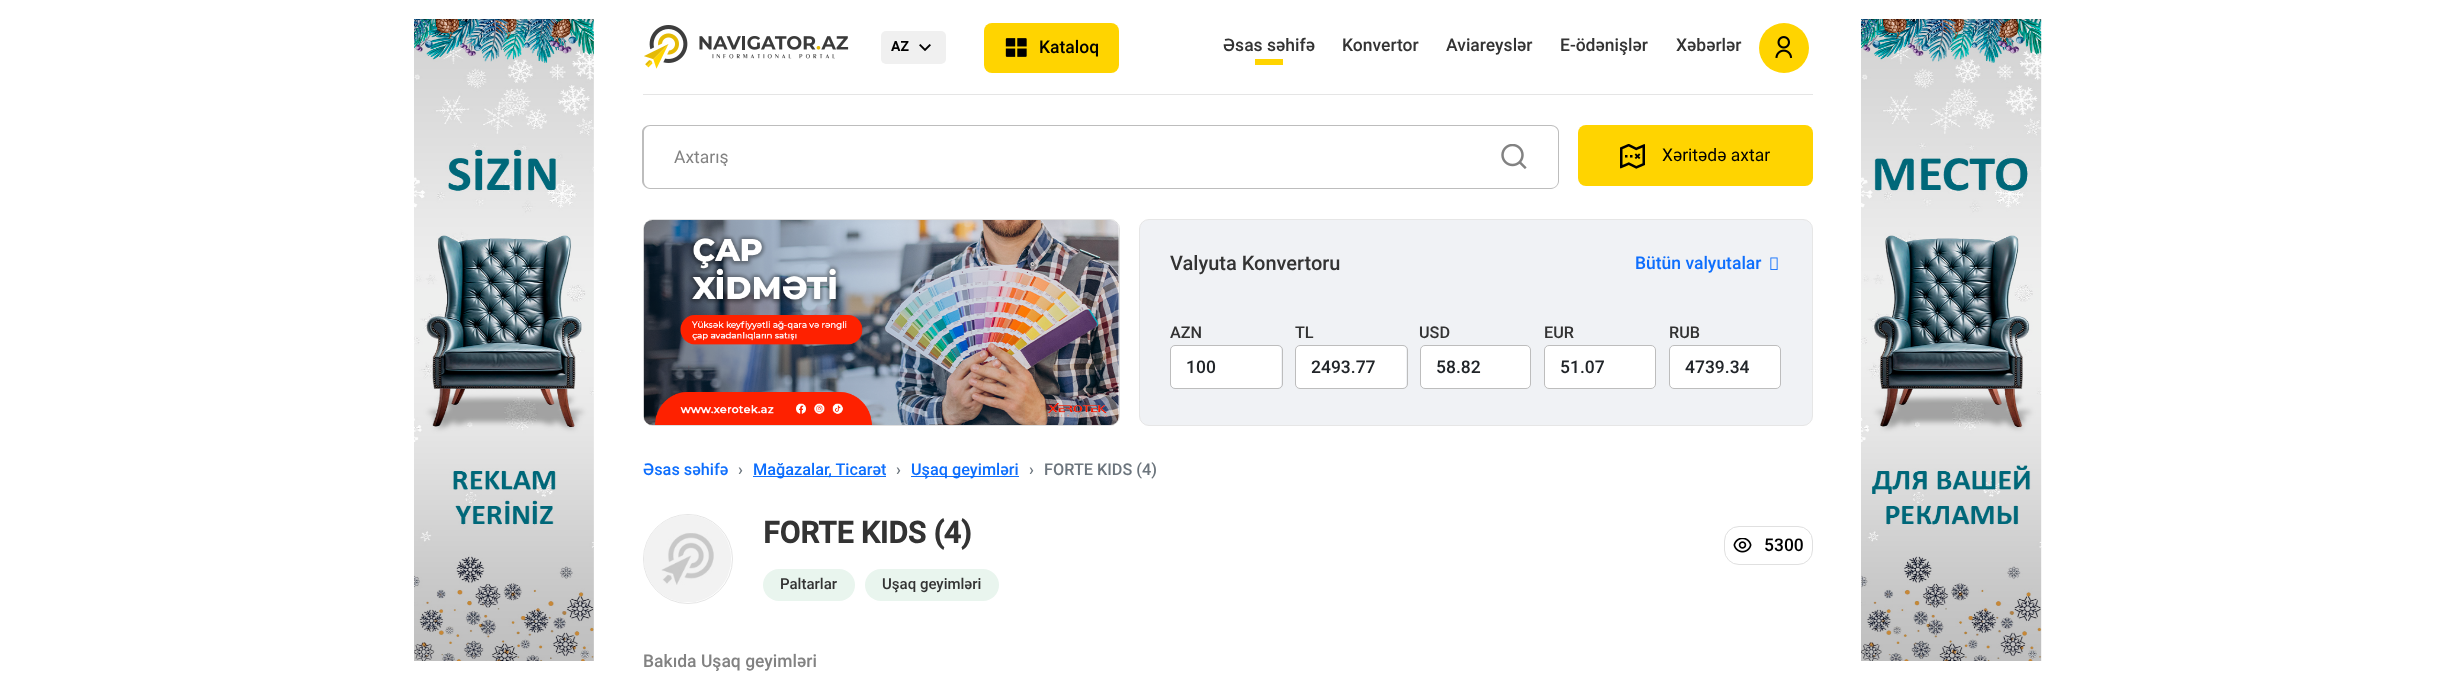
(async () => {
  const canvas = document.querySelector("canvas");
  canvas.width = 2454;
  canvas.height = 679;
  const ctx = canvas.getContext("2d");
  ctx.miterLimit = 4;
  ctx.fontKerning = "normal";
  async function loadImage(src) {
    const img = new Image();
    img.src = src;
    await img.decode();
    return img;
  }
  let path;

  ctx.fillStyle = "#ffffff";
  ctx.fillRect(0, 0, 2454, 679);
  ctx.drawImage(await loadImage("img/1.png"), 414, 19, 180, 642);
  ctx.fillStyle = "#e5e5e5";
  ctx.fillRect(643, 94, 1170, 1);
  ctx.drawImage(await loadImage("img/2.png"), 644, 25, 205, 44);
  ctx.fillStyle = "#f0f0f0";
  ctx.beginPath();
  ctx.roundRect(881, 31, 65, 33, 5);
  ctx.fill();
  ctx.drawImage(await loadImage("img/3.png"), 919, 44, 12, 7);
  ctx.fillStyle = "#ffd400";
  ctx.beginPath();
  ctx.roundRect(984, 23, 135, 50, 8);
  ctx.fill();
  ctx.drawImage(await loadImage("img/4.png"), 1005, 38, 22, 19);
  ctx.fillRect(1255, 59, 28, 6);
  ctx.beginPath();
  ctx.arc(1784, 48, 25, 0, Math.PI * 2);
  ctx.fill();
  ctx.drawImage(await loadImage("img/5.png"), 1775, 36, 18, 22);
  ctx.fillStyle = "#bdbdbd";
  path = new Path2D("M1495 125H1551C1555 125 1559 128 1559 132V181C1559 185 1555 189 1551 189H1495ZM1495 126H1551C1555 126 1558 129 1558 132V181C1558 185 1555 188 1551 188H1495Z");
  ctx.fill(path, "evenodd");
  path = new Path2D("M650 125H1496V189H650C646 189 642 185 642 181V132C642 128 646 125 650 125ZM650 126H1496V188H650C647 188 644 185 644 181V132C644 129 647 126 650 126Z");
  ctx.fill(path, "evenodd");
  ctx.drawImage(await loadImage("img/6.png"), 1501, 144, 26, 25);
  ctx.fillStyle = "#ffd400";
  ctx.beginPath();
  ctx.roundRect(1578, 125, 235, 61, 8);
  ctx.fill();
  ctx.drawImage(await loadImage("img/7.png"), 1620, 144, 25, 25);
  ctx.drawImage(await loadImage("img/8.png"), 643, 220, 476, 205);
  ctx.beginPath();
  ctx.roundRect(643.5, 219.5, 476, 206, 9.5);
  ctx.strokeStyle = "rgba(0, 0, 0, 0.12)";
  ctx.stroke();
  ctx.fillStyle = "#f0f2f5";
  ctx.beginPath();
  ctx.roundRect(1139.5, 219.5, 673, 206, 9.5);
  ctx.fill();
  ctx.strokeStyle = "#e6e6e6";
  ctx.stroke();
  ctx.drawImage(await loadImage("img/9.png"), 1770, 257, 8, 13);
  ctx.fillStyle = "#ffffff";
  ctx.beginPath();
  ctx.roundRect(1171, 346, 110, 42, 4);
  ctx.fill();
  ctx.beginPath();
  ctx.roundRect(1170.5, 345.5, 112, 43, 4.5);
  ctx.strokeStyle = "#bdbdbd";
  ctx.stroke();
  ctx.beginPath();
  ctx.roundRect(1296, 346, 110, 42, 4);
  ctx.fill();
  ctx.beginPath();
  ctx.roundRect(1295.5, 345.5, 112, 43, 4.5);
  ctx.stroke();
  ctx.beginPath();
  ctx.roundRect(1420.5, 345.5, 110, 43, 4.5);
  ctx.fill();
  ctx.stroke();
  ctx.beginPath();
  ctx.roundRect(1544.5, 345.5, 111, 43, 4.5);
  ctx.fill();
  ctx.stroke();
  ctx.beginPath();
  ctx.roundRect(1669.5, 345.5, 111, 43, 4.5);
  ctx.fill();
  ctx.stroke();
  ctx.fillStyle = "#0d6efd";
  ctx.fillRect(753, 476, 133, 1);
  ctx.fillRect(911, 476, 108, 1);
  ctx.beginPath();
  ctx.arc(688, 559, 44.5, 0, Math.PI * 2);
  ctx.strokeStyle = "#e5e5e5";
  ctx.stroke();
  ctx.drawImage(await loadImage("img/10.png"), 644, 515, 87, 87);
  ctx.fillStyle = "#e9f5ee";
  ctx.beginPath();
  ctx.roundRect(763, 569, 92, 32, 16);
  ctx.fill();
  ctx.beginPath();
  ctx.roundRect(865, 569, 134, 32, 16);
  ctx.fill();
  ctx.beginPath();
  ctx.roundRect(1724.5, 526.5, 88, 38, 14.5);
  ctx.strokeStyle = "#e0e0e0";
  ctx.stroke();
  ctx.drawImage(await loadImage("img/11.png"), 1733, 538, 19, 15);
  ctx.drawImage(await loadImage("img/12.png"), 1861, 19, 181, 642);
  ctx.font = "bold 14px 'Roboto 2'";
  ctx.fillStyle = "#000000";
  ctx.fillText("AZ", 891, 51);
  ctx.font = "500 17.5px Roboto";
  ctx.fillText("Kataloq", 1039, 53);
  ctx.fillStyle = "#333333";
  for (const [text, x, y] of [
    ["Əsas səhifə", 1223, 51],
    ["Konvertor", 1342, 51],
    ["Aviareyslər", 1446, 51],
    ["E-ödənişlər", 1560, 51],
    ["Xəbərlər", 1676, 51],
  ]) {
    ctx.fillText(text, x, y);
  }
  ctx.save();
  ctx.beginPath();
  ctx.rect(674, 146, 792, 20);
  ctx.clip();
  ctx.font = "17.5px Roboto";
  ctx.fillStyle = "#828282";
  ctx.fillText("Axtarış", 674, 163);
  ctx.restore();
  ctx.font = "17.5px Roboto";
  ctx.fillStyle = "#000000";
  ctx.fillText("Xəritədə axtar", 1662, 161);
  ctx.font = "500 20px Roboto";
  ctx.fillStyle = "#333333";
  ctx.fillText("Valyuta Konvertoru", 1170, 270);
  ctx.font = "500 17.5px Roboto";
  ctx.fillStyle = "#0d6efd";
  ctx.fillText("Bütün valyutalar", 1635, 269);
  ctx.font = "500 16.25px Roboto";
  ctx.fillStyle = "#333333";
  ctx.fillText("AZN", 1170, 338);
  ctx.font = "500 17.5px Roboto";
  ctx.fillStyle = "#212529";
  ctx.fillText("100", 1186, 373);
  ctx.font = "500 16.25px Roboto";
  ctx.fillStyle = "#333333";
  ctx.fillText("TL", 1295, 338);
  ctx.font = "500 17.5px Roboto";
  ctx.fillStyle = "#212529";
  ctx.fillText("2493.77", 1311, 373);
  ctx.font = "500 16.25px Roboto";
  ctx.fillStyle = "#333333";
  ctx.fillText("USD", 1419, 338);
  ctx.font = "500 17.5px Roboto";
  ctx.fillStyle = "#212529";
  ctx.fillText("58.82", 1436, 373);
  ctx.font = "500 16.25px Roboto";
  ctx.fillStyle = "#333333";
  ctx.fillText("EUR", 1544, 338);
  ctx.font = "500 17.5px Roboto";
  ctx.fillStyle = "#212529";
  ctx.fillText("51.07", 1560, 373);
  ctx.font = "500 16.25px Roboto";
  ctx.fillStyle = "#333333";
  ctx.fillText("RUB", 1669, 338);
  ctx.font = "500 17.5px Roboto";
  ctx.fillStyle = "#212529";
  ctx.fillText("4739.34", 1685, 373);
  ctx.font = "500 16.25px Roboto";
  ctx.fillStyle = "#0d6efd";
  ctx.fillText("Əsas səhifə", 643, 475);
  ctx.fillStyle = "#6c757d";
  ctx.fillText("›", 738, 475);
  ctx.fillStyle = "#0d6efd";
  ctx.fillText("Mağazalar, Ticarət", 753, 475);
  ctx.fillStyle = "#6c757d";
  ctx.fillText("›", 896, 475);
  ctx.fillStyle = "#0d6efd";
  ctx.fillText("Uşaq geyimləri", 911, 475);
  ctx.fillStyle = "#6c757d";
  ctx.fillText("›", 1029, 475);
  ctx.fillText("FORTE KIDS (4)", 1044, 475);
  ctx.font = "bold 30px Roboto";
  ctx.fillStyle = "#333333";
  ctx.fillText("FORTE KIDS (4)", 763, 543);
  ctx.font = "500 15px Roboto";
  ctx.fillText("Paltarlar", 780, 589);
  ctx.fillText("Uşaq geyimləri", 882, 589);
  ctx.font = "500 17.5px Roboto";
  ctx.fillStyle = "#828282";
  ctx.fillText("Bakıda Uşaq geyimləri", 643, 667);
  ctx.fillStyle = "#000000";
  ctx.fillText("5300", 1764, 551);
})();
